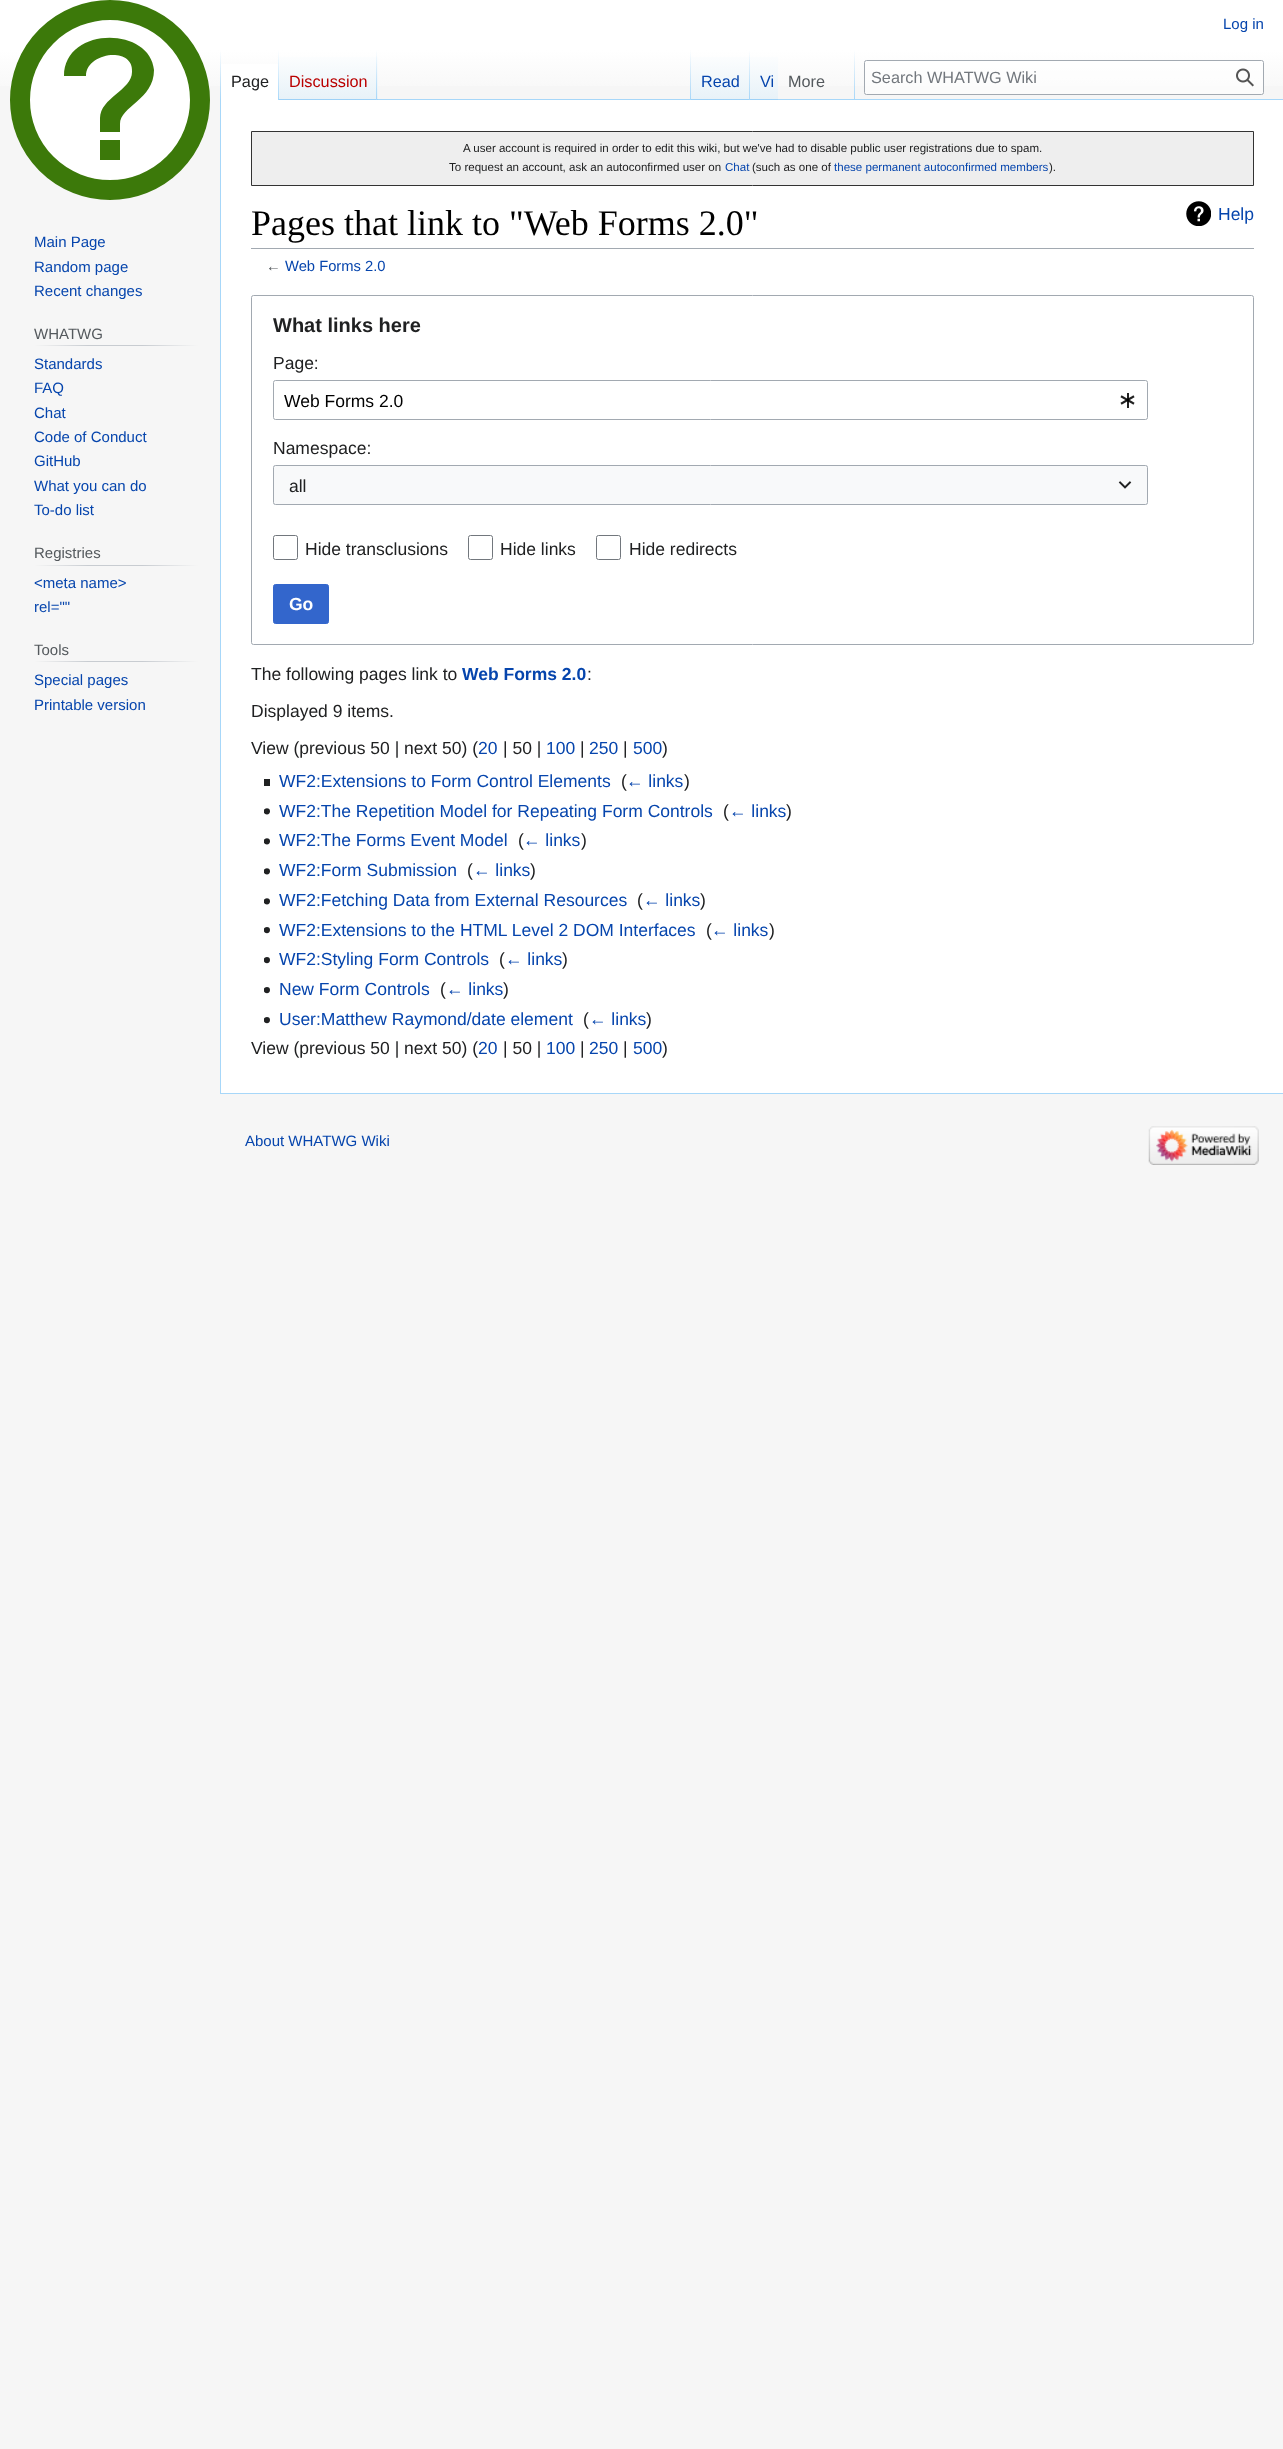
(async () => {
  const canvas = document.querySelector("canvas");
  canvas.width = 1283;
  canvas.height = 2449;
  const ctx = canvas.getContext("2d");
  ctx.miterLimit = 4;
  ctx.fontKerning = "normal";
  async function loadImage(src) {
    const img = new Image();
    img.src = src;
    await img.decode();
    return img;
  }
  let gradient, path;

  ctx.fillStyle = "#f6f6f6";
  ctx.fillRect(0, 0, 1283, 2449);
  gradient = ctx.createLinearGradient(642, 0, 642, 100);
  gradient.addColorStop(0.5, "#ffffff");
  gradient.addColorStop(1, "#f6f6f6");
  ctx.fillStyle = gradient;
  ctx.fillRect(0, 0, 1283, 86);
  ctx.fillStyle = "#a7d7f9";
  ctx.fillRect(220, 1093, 1063, 1);
  ctx.fillRect(220, 99, 1, 995);
  gradient = ctx.createLinearGradient(221, 50, 221, 100);
  gradient.addColorStop(0, "rgba(167, 215, 249, 0)");
  gradient.addColorStop(1, "#a7d7f9");
  ctx.fillStyle = gradient;
  ctx.fillRect(220, 50, 1, 50);
  ctx.fillStyle = "#ffffff";
  ctx.fillRect(221, 64, 57, 36);
  gradient = ctx.createLinearGradient(278, 50, 278, 100);
  gradient.addColorStop(0, "#ffffff");
  gradient.addColorStop(1, "#a7d7f9");
  ctx.fillStyle = gradient;
  ctx.fillRect(278, 50, 1, 50);
  gradient = ctx.createLinearGradient(328, 100, 328, 50);
  gradient.addColorStop(0, "#77c1f6");
  gradient.addColorStop(0.03, "#e8f2f8");
  gradient.addColorStop(1, "#ffffff");
  ctx.fillStyle = gradient;
  ctx.fillRect(279, 57, 99, 43);
  gradient = ctx.createLinearGradient(377, 50, 377, 100);
  gradient.addColorStop(0, "rgba(167, 215, 249, 0)");
  gradient.addColorStop(1, "#a7d7f9");
  ctx.fillStyle = gradient;
  ctx.fillRect(376, 50, 1, 50);
  ctx.fillStyle = "#a7d7f9";
  ctx.fillRect(378, 99, 905, 1);
  gradient = ctx.createLinearGradient(691, 50, 691, 100);
  gradient.addColorStop(0, "rgba(167, 215, 249, 0)");
  gradient.addColorStop(1, "#a7d7f9");
  ctx.fillStyle = gradient;
  ctx.fillRect(690, 50, 1, 50);
  gradient = ctx.createLinearGradient(721, 100, 721, 50);
  gradient.addColorStop(0, "#77c1f6");
  gradient.addColorStop(0.03, "#e8f2f8");
  gradient.addColorStop(1, "#ffffff");
  ctx.fillStyle = gradient;
  ctx.fillRect(691, 57, 59, 43);
  gradient = ctx.createLinearGradient(749, 50, 749, 100);
  gradient.addColorStop(0, "rgba(167, 215, 249, 0)");
  gradient.addColorStop(1, "#a7d7f9");
  ctx.fillStyle = gradient;
  ctx.fillRect(749, 50, 1, 50);
  gradient = ctx.createLinearGradient(764, 100, 764, 50);
  gradient.addColorStop(0, "#77c1f6");
  gradient.addColorStop(0.03, "#e8f2f8");
  gradient.addColorStop(1, "#ffffff");
  ctx.fillStyle = gradient;
  ctx.fillRect(750, 57, 28, 43);
  gradient = ctx.createLinearGradient(854, 50, 854, 100);
  gradient.addColorStop(0, "rgba(167, 215, 249, 0)");
  gradient.addColorStop(1, "#a7d7f9");
  ctx.fillStyle = gradient;
  ctx.fillRect(854, 50, 1, 50);
  ctx.fillStyle = "rgba(255, 255, 255, 0.5)";
  ctx.beginPath();
  ctx.roundRect(864.5, 60.5, 399, 34, 2);
  ctx.fill();
  ctx.strokeStyle = "#a2a9b1";
  ctx.stroke();
  ctx.drawImage(await loadImage("img/1.png"), 1236, 68, 18, 19);
  ctx.fillStyle = "#ffffff";
  ctx.beginPath();
  ctx.arc(110, 100, 90, 0, Math.PI * 2);
  ctx.fill();
  ctx.strokeStyle = "#3c790a";
  ctx.lineWidth = 20;
  ctx.stroke();
  ctx.fillStyle = "#3c790a";
  path = new Path2D("M86 76C86 52 134 46 132 72C132 90 100 98 100 118V132H120V124C120 106 154 100 154 70C150 26 64 26 64 76ZM100 140H120V160H100");
  ctx.fill(path);
  gradient = ctx.createLinearGradient(34, 346, 198, 346);
  gradient.addColorStop(0, "#f6f6f6");
  gradient.addColorStop(0.33, "#c8ccd1");
  gradient.addColorStop(0.66, "#c8ccd1");
  gradient.addColorStop(1, "#f6f6f6");
  ctx.fillStyle = gradient;
  ctx.fillRect(34, 345, 164, 1);
  gradient = ctx.createLinearGradient(34, 566, 198, 566);
  gradient.addColorStop(0, "#f6f6f6");
  gradient.addColorStop(0.33, "#c8ccd1");
  gradient.addColorStop(0.66, "#c8ccd1");
  gradient.addColorStop(1, "#f6f6f6");
  ctx.fillStyle = gradient;
  ctx.fillRect(34, 565, 164, 1);
  gradient = ctx.createLinearGradient(34, 662, 198, 662);
  gradient.addColorStop(0, "#f6f6f6");
  gradient.addColorStop(0.33, "#c8ccd1");
  gradient.addColorStop(0.66, "#c8ccd1");
  gradient.addColorStop(1, "#f6f6f6");
  ctx.fillStyle = gradient;
  ctx.fillRect(34, 661, 164, 1);
  ctx.fillStyle = "#ffffff";
  ctx.fillRect(221, 100, 1062, 993);
  ctx.fillStyle = "#eeeeee";
  ctx.beginPath();
  ctx.rect(251.5, 131.5, 1002, 54);
  ctx.fill();
  ctx.strokeStyle = "#333333";
  ctx.lineWidth = 1;
  ctx.stroke();
  ctx.fillStyle = "#a2a9b1";
  ctx.fillRect(251, 248, 1003, 1);
  ctx.drawImage(await loadImage("img/2.png"), 1186, 201, 25, 25);
  ctx.beginPath();
  ctx.roundRect(251.5, 295.5, 1002, 349, 2);
  ctx.strokeStyle = "#a2a9b1";
  ctx.stroke();
  ctx.beginPath();
  ctx.roundRect(273.5, 380.5, 874, 39, 2);
  ctx.stroke();
  ctx.drawImage(await loadImage("img/3.png"), 1120, 393, 15, 15);
  ctx.fillStyle = "#f8f9fa";
  ctx.fillRect(273, 465, 875, 40);
  ctx.beginPath();
  ctx.roundRect(273.5, 465.5, 874, 39, 2);
  ctx.stroke();
  ctx.drawImage(await loadImage("img/4.png"), 1118, 481, 14, 8);
  ctx.beginPath();
  ctx.roundRect(273.5, 535.5, 24, 24, 2);
  ctx.strokeStyle = "#72777d";
  ctx.stroke();
  ctx.beginPath();
  ctx.roundRect(468.5, 535.5, 24, 24, 2);
  ctx.stroke();
  ctx.beginPath();
  ctx.roundRect(596.5, 535.5, 24, 24, 2);
  ctx.stroke();
  ctx.fillStyle = "#3366cc";
  ctx.beginPath();
  ctx.roundRect(273.5, 584.5, 55, 39, 2);
  ctx.fill();
  ctx.strokeStyle = "#3366cc";
  ctx.stroke();
  ctx.fillStyle = "#202122";
  ctx.fillRect(264, 779, 6, 7);
  ctx.drawImage(await loadImage("img/5.png"), 264, 808, 6, 7);
  ctx.drawImage(await loadImage("img/5.png"), 264, 838, 6, 7);
  ctx.drawImage(await loadImage("img/5.png"), 264, 868, 6, 7);
  ctx.drawImage(await loadImage("img/5.png"), 264, 898, 6, 7);
  ctx.drawImage(await loadImage("img/6.png"), 264, 927, 6, 7);
  ctx.drawImage(await loadImage("img/6.png"), 264, 957, 6, 7);
  ctx.drawImage(await loadImage("img/6.png"), 264, 987, 6, 7);
  ctx.drawImage(await loadImage("img/7.png"), 264, 1017, 6, 7);
  ctx.drawImage(await loadImage("img/8.png"), 1148, 1126, 111, 39);
  ctx.font = "15px Liberation Sans";
  ctx.fillStyle = "#0645ad";
  ctx.fillText("Log in", 1223, 29);
  ctx.font = "16.25px Liberation Sans";
  ctx.fillStyle = "#202122";
  ctx.fillText("Page", 231, 87);
  ctx.fillStyle = "#ba0000";
  ctx.fillText("Discussion", 289, 87);
  ctx.fillStyle = "#0645ad";
  ctx.fillText("Read", 701, 87);
  ctx.fillText("Vi", 760, 87);
  ctx.fillStyle = "#54595d";
  ctx.fillText("More", 788, 87);
  ctx.fillStyle = "#72777d";
  ctx.fillText("Search WHATWG Wiki", 871, 83);
  ctx.font = "15px Liberation Sans";
  ctx.fillStyle = "#0645ad";
  for (const [text, x, y] of [
    ["Main Page", 34, 247],
    ["Random page", 34, 272],
    ["Recent changes", 34, 296],
  ]) {
    ctx.fillText(text, x, y);
  }
  ctx.fillStyle = "#54595d";
  ctx.fillText("WHATWG", 34, 339);
  ctx.fillStyle = "#0645ad";
  for (const [text, x, y] of [
    ["Standards", 34, 369],
    ["FAQ", 34, 393],
    ["Chat", 34, 418],
    ["Code of Conduct", 34, 442],
    ["GitHub", 34, 466],
    ["What you can do", 34, 491],
    ["To-do list", 34, 515],
  ]) {
    ctx.fillText(text, x, y);
  }
  ctx.fillStyle = "#54595d";
  ctx.fillText("Registries", 34, 558);
  ctx.fillStyle = "#0645ad";
  ctx.fillText("<meta name>", 34, 588);
  ctx.fillText("rel=\"\"", 34, 612);
  ctx.fillStyle = "#54595d";
  ctx.fillText("Tools", 34, 655);
  ctx.fillStyle = "#0645ad";
  ctx.fillText("Special pages", 34, 685);
  ctx.fillText("Printable version", 34, 710);
  ctx.font = "11.55px Liberation Sans";
  ctx.fillStyle = "#202122";
  ctx.fillText("A user account is required in order to edit this wiki, but we've had to disable public user registrations due to spam.", 463, 152);
  ctx.fillText("To request an account, ask an autoconfirmed user on", 449, 171);
  ctx.fillStyle = "#0645ad";
  ctx.fillText("Chat", 725, 171);
  ctx.fillStyle = "#202122";
  ctx.fillText("(such as one of", 752, 171);
  ctx.fillStyle = "#0645ad";
  ctx.fillText("these permanent autoconfirmed members", 834, 171);
  ctx.fillStyle = "#202122";
  ctx.fillText(").", 1049, 171);
  ctx.font = "36px Liberation Serif";
  ctx.fillStyle = "#000000";
  ctx.fillText("Pages that link to \"Web Forms 2.0\"", 251, 235);
  ctx.font = "17.5px Liberation Sans";
  ctx.fillStyle = "#0645ad";
  ctx.fillText("Help", 1218, 220);
  ctx.font = "14.75px Liberation Sans";
  ctx.fillStyle = "#54595d";
  ctx.fillText("←", 266, 271);
  ctx.fillStyle = "#0645ad";
  ctx.fillText("Web Forms 2.0", 285, 271);
  ctx.font = "bold 20px Liberation Sans";
  ctx.fillStyle = "#202122";
  ctx.fillText("What links here", 273, 332);
  ctx.font = "17.5px Liberation Sans";
  ctx.fillText("Page:", 273, 369);
  ctx.fillStyle = "#000000";
  ctx.fillText("Web Forms 2.0", 284, 407);
  ctx.fillStyle = "#202122";
  for (const [text, x, y] of [
    ["Namespace:", 273, 454],
    ["all", 289, 492],
    ["Hide transclusions", 305, 555],
    ["Hide links", 500, 555],
    ["Hide redirects", 629, 555],
  ]) {
    ctx.fillText(text, x, y);
  }
  ctx.font = "bold 17.5px Liberation Sans";
  ctx.fillStyle = "#ffffff";
  ctx.fillText("Go", 289, 610);
  ctx.font = "17.5px Liberation Sans";
  ctx.fillStyle = "#202122";
  ctx.fillText("The following pages link to", 251, 680);
  ctx.font = "bold 17.5px Liberation Sans";
  ctx.fillStyle = "#0645ad";
  ctx.fillText("Web Forms 2.0", 462, 680);
  ctx.font = "17.5px Liberation Sans";
  ctx.fillStyle = "#202122";
  for (const [text, x, y] of [
    [":", 587, 680],
    ["Displayed 9 items.", 251, 717],
    ["View (previous 50 | next 50) (", 251, 754],
  ]) {
    ctx.fillText(text, x, y);
  }
  ctx.fillStyle = "#0645ad";
  ctx.fillText("20", 478, 754);
  ctx.fillStyle = "#202122";
  ctx.fillText("| 50 |", 503, 754);
  ctx.fillStyle = "#0645ad";
  ctx.fillText("100", 546, 754);
  ctx.fillStyle = "#202122";
  ctx.fillText("|", 580, 754);
  ctx.fillStyle = "#0645ad";
  ctx.fillText("250", 589, 754);
  ctx.fillStyle = "#202122";
  ctx.fillText("|", 623, 754);
  ctx.fillStyle = "#0645ad";
  ctx.fillText("500", 633, 754);
  ctx.fillStyle = "#202122";
  ctx.fillText(")", 662, 754);
  ctx.fillStyle = "#0645ad";
  ctx.fillText("WF2:Extensions to Form Control Elements", 279, 787);
  ctx.fillStyle = "#202122";
  ctx.fillText("(", 621, 787);
  ctx.fillStyle = "#0645ad";
  ctx.fillText("← links", 626, 787);
  ctx.fillStyle = "#202122";
  ctx.fillText(")", 684, 787);
  ctx.fillStyle = "#0645ad";
  ctx.fillText("WF2:The Repetition Model for Repeating Form Controls", 279, 817);
  ctx.fillStyle = "#202122";
  ctx.fillText("(", 723, 817);
  ctx.fillStyle = "#0645ad";
  ctx.fillText("← links", 729, 817);
  ctx.fillStyle = "#202122";
  ctx.fillText(")", 786, 817);
  ctx.fillStyle = "#0645ad";
  ctx.fillText("WF2:The Forms Event Model", 279, 846);
  ctx.fillStyle = "#202122";
  ctx.fillText("(", 518, 846);
  ctx.fillStyle = "#0645ad";
  ctx.fillText("← links", 523, 846);
  ctx.fillStyle = "#202122";
  ctx.fillText(")", 581, 846);
  ctx.fillStyle = "#0645ad";
  ctx.fillText("WF2:Form Submission", 279, 876);
  ctx.fillStyle = "#202122";
  ctx.fillText("(", 467, 876);
  ctx.fillStyle = "#0645ad";
  ctx.fillText("← links", 473, 876);
  ctx.fillStyle = "#202122";
  ctx.fillText(")", 530, 876);
  ctx.fillStyle = "#0645ad";
  ctx.fillText("WF2:Fetching Data from External Resources", 279, 906);
  ctx.fillStyle = "#202122";
  ctx.fillText("(", 637, 906);
  ctx.fillStyle = "#0645ad";
  ctx.fillText("← links", 643, 906);
  ctx.fillStyle = "#202122";
  ctx.fillText(")", 700, 906);
  ctx.fillStyle = "#0645ad";
  ctx.fillText("WF2:Extensions to the HTML Level 2 DOM Interfaces", 279, 936);
  ctx.fillStyle = "#202122";
  ctx.fillText("(", 706, 936);
  ctx.fillStyle = "#0645ad";
  ctx.fillText("← links", 711, 936);
  ctx.fillStyle = "#202122";
  ctx.fillText(")", 769, 936);
  ctx.fillStyle = "#0645ad";
  ctx.fillText("WF2:Styling Form Controls", 279, 965);
  ctx.fillStyle = "#202122";
  ctx.fillText("(", 499, 965);
  ctx.fillStyle = "#0645ad";
  ctx.fillText("← links", 505, 965);
  ctx.fillStyle = "#202122";
  ctx.fillText(")", 562, 965);
  ctx.fillStyle = "#0645ad";
  ctx.fillText("New Form Controls", 279, 995);
  ctx.fillStyle = "#202122";
  ctx.fillText("(", 440, 995);
  ctx.fillStyle = "#0645ad";
  ctx.fillText("← links", 446, 995);
  ctx.fillStyle = "#202122";
  ctx.fillText(")", 503, 995);
  ctx.fillStyle = "#0645ad";
  ctx.fillText("User:Matthew Raymond/date element", 279, 1025);
  ctx.fillStyle = "#202122";
  ctx.fillText("(", 583, 1025);
  ctx.fillStyle = "#0645ad";
  ctx.fillText("← links", 589, 1025);
  ctx.fillStyle = "#202122";
  ctx.fillText(")", 646, 1025);
  ctx.fillText("View (previous 50 | next 50) (", 251, 1054);
  ctx.fillStyle = "#0645ad";
  ctx.fillText("20", 478, 1054);
  ctx.fillStyle = "#202122";
  ctx.fillText("| 50 |", 503, 1054);
  ctx.fillStyle = "#0645ad";
  ctx.fillText("100", 546, 1054);
  ctx.fillStyle = "#202122";
  ctx.fillText("|", 580, 1054);
  ctx.fillStyle = "#0645ad";
  ctx.fillText("250", 589, 1054);
  ctx.fillStyle = "#202122";
  ctx.fillText("|", 623, 1054);
  ctx.fillStyle = "#0645ad";
  ctx.fillText("500", 633, 1054);
  ctx.fillStyle = "#202122";
  ctx.fillText(")", 662, 1054);
  ctx.font = "15px Liberation Sans";
  ctx.fillStyle = "#0645ad";
  ctx.fillText("About WHATWG Wiki", 245, 1146);
})();
